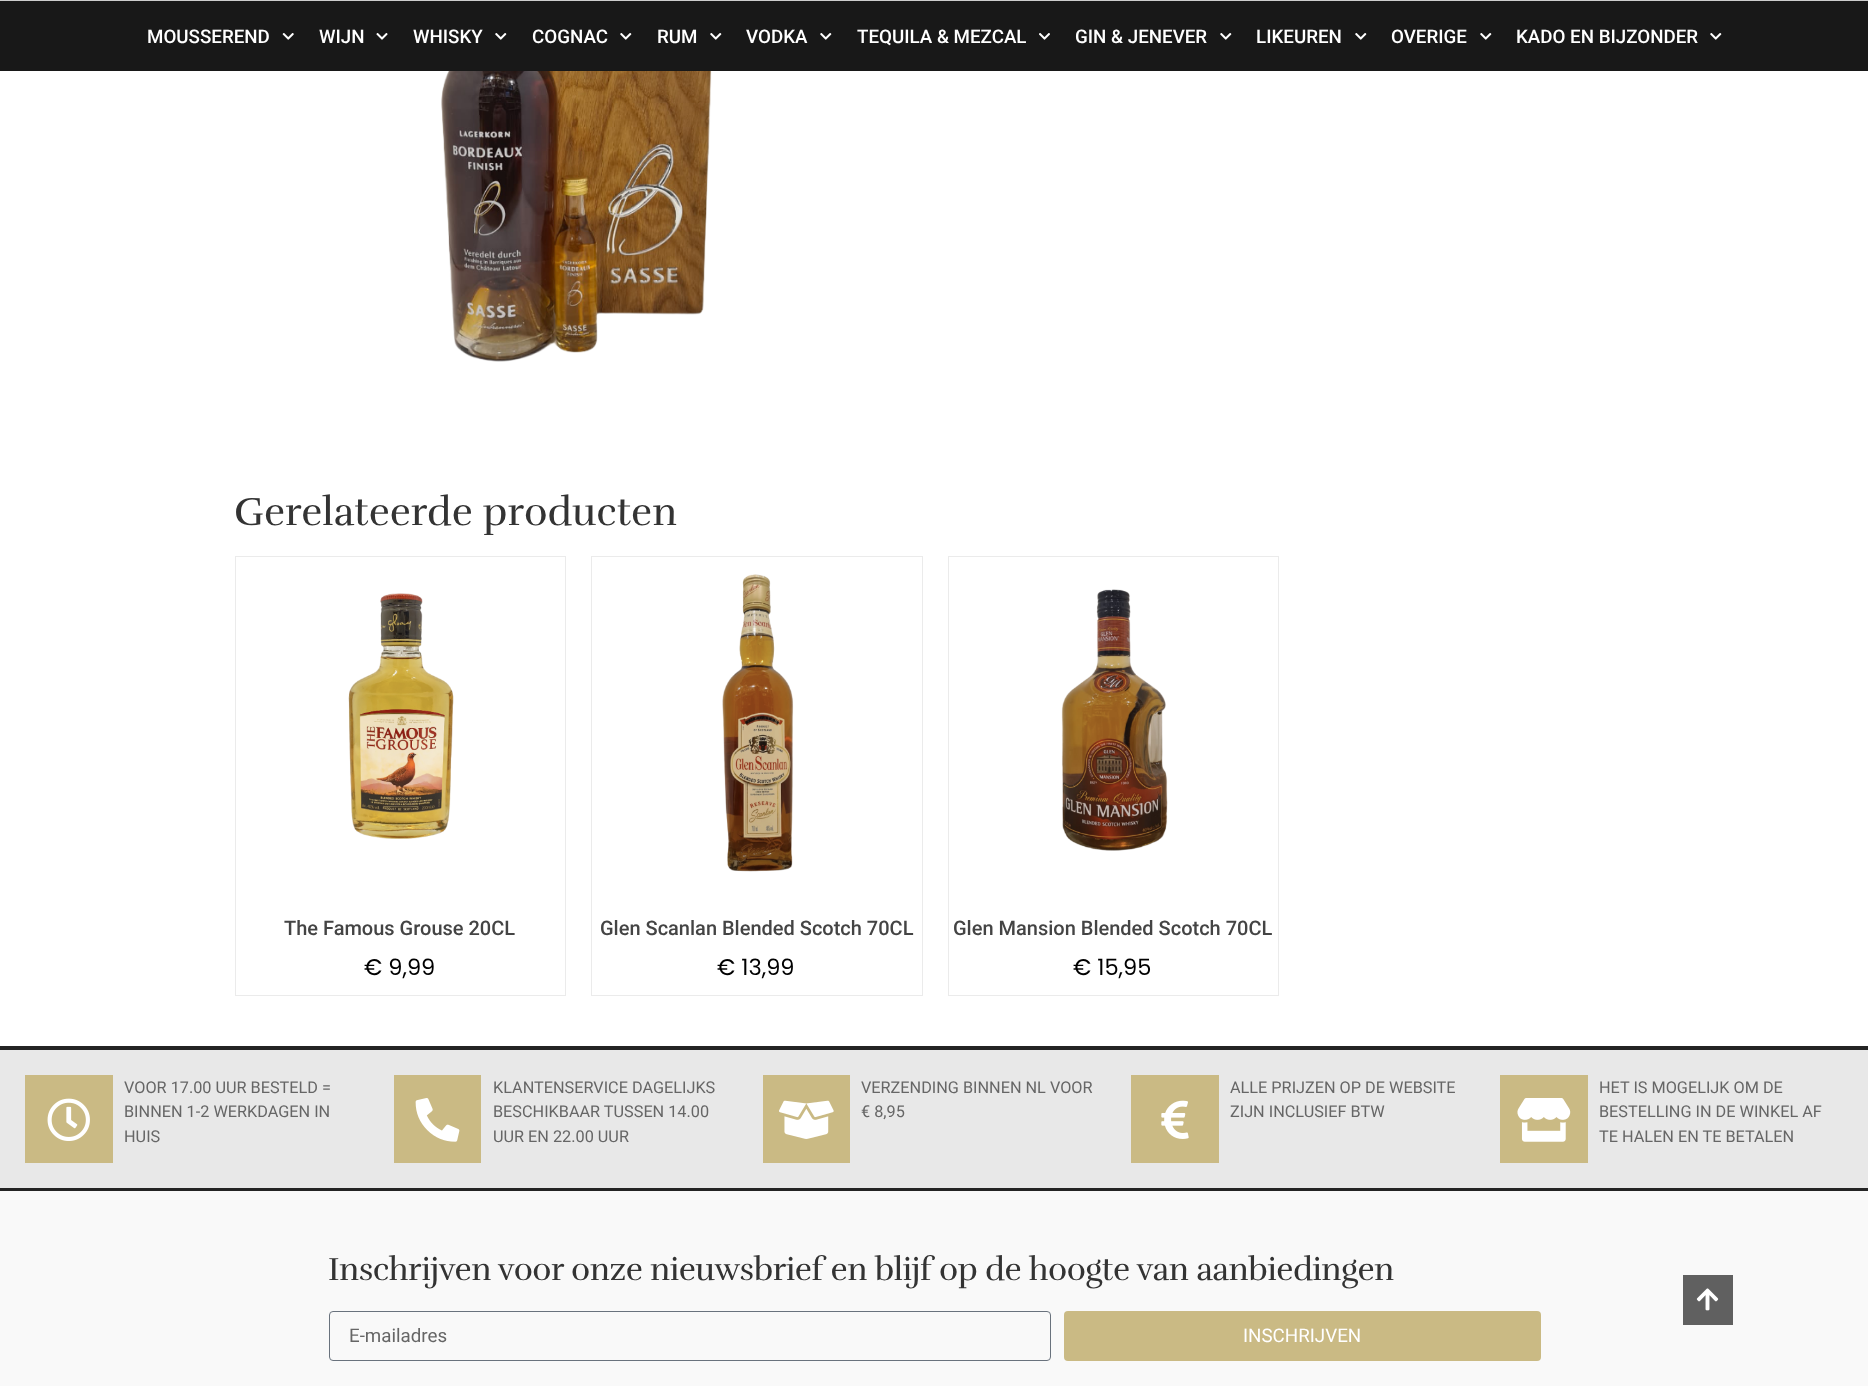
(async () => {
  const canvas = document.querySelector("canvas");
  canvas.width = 1868;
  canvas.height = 1386;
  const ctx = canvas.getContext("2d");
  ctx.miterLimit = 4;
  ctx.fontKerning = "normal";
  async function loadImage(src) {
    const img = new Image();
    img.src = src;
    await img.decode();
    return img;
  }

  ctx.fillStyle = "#ffffff";
  ctx.fillRect(0, 0, 1868, 1386);
  ctx.fillStyle = "#181818";
  ctx.fillRect(0, 1, 1868, 70);
  ctx.fillStyle = "#cccccc";
  ctx.fillRect(0, 0, 1868, 1);
  ctx.drawImage(await loadImage("img/1.png"), 282, 33, 12, 7);
  ctx.drawImage(await loadImage("img/2.png"), 376, 33, 12, 7);
  ctx.drawImage(await loadImage("img/3.png"), 495, 33, 12, 7);
  ctx.drawImage(await loadImage("img/3.png"), 620, 33, 12, 7);
  ctx.drawImage(await loadImage("img/3.png"), 710, 33, 12, 7);
  ctx.drawImage(await loadImage("img/3.png"), 820, 33, 12, 7);
  ctx.drawImage(await loadImage("img/4.png"), 1039, 33, 11, 7);
  ctx.drawImage(await loadImage("img/3.png"), 1220, 33, 12, 7);
  ctx.drawImage(await loadImage("img/3.png"), 1355, 33, 12, 7);
  ctx.drawImage(await loadImage("img/3.png"), 1480, 33, 12, 7);
  ctx.drawImage(await loadImage("img/3.png"), 1710, 33, 12, 7);
  ctx.fillStyle = "#f9f9f9";
  ctx.fillRect(0, 1191, 1868, 195);
  ctx.fillStyle = "#606060";
  ctx.fillRect(1683, 1275, 50, 50);
  ctx.drawImage(await loadImage("img/5.png"), 1696, 1288, 23, 23);
  ctx.drawImage(await loadImage("img/6.png"), 441, 71, 271, 291);
  ctx.strokeStyle = "#ebebeb";
  ctx.strokeRect(235.5, 556.5, 330, 439);
  ctx.drawImage(await loadImage("img/7.png"), 348, 593, 106, 246);
  ctx.strokeRect(591.5, 556.5, 331, 439);
  ctx.drawImage(await loadImage("img/8.png"), 722, 574, 72, 298);
  ctx.strokeRect(948.5, 556.5, 330, 439);
  ctx.drawImage(await loadImage("img/9.png"), 1061, 589, 107, 262);
  for (const [x, y, w, h, color] of [
    [0, 1050, 1868, 138, "#e8e8e8"],
    [0, 1046, 1868, 4, "#242424"],
    [0, 1188, 1868, 3, "#242424"],
    [25, 1075, 88, 88, "#caba84"],
  ]) {
    ctx.fillStyle = color;
    ctx.fillRect(x, y, w, h);
  }
  ctx.drawImage(await loadImage("img/10.png"), 47, 1098, 43, 43);
  ctx.fillRect(394, 1075, 87, 88);
  ctx.drawImage(await loadImage("img/11.png"), 415, 1098, 45, 44);
  ctx.fillRect(763, 1075, 87, 88);
  ctx.drawImage(await loadImage("img/12.png"), 779, 1100, 55, 39);
  ctx.fillRect(1131, 1075, 88, 88);
  ctx.drawImage(await loadImage("img/13.png"), 1161, 1100, 28, 39);
  ctx.fillRect(1500, 1075, 88, 88);
  ctx.drawImage(await loadImage("img/14.png"), 1517, 1098, 54, 44);
  ctx.beginPath();
  ctx.roundRect(329.5, 1311.5, 721, 49, 3.5);
  ctx.strokeStyle = "#69727d";
  ctx.stroke();
  ctx.beginPath();
  ctx.roundRect(1064, 1311, 477, 50, 4);
  ctx.fill();
  ctx.font = "500 18.75px Roboto";
  ctx.fillStyle = "#ffffff";
  for (const [text, x, y] of [
    ["MOUSSEREND", 147, 43],
    ["WIJN", 319, 43],
    ["WHISKY", 413, 43],
    ["COGNAC", 532, 43],
    ["RUM", 657, 43],
    ["VODKA", 746, 43],
    ["TEQUILA & MEZCAL", 857, 43],
    ["GIN & JENEVER", 1075, 43],
    ["LIKEUREN", 1256, 43],
    ["OVERIGE", 1391, 43],
    ["KADO EN BIJZONDER", 1516, 43],
  ]) {
    ctx.fillText(text, x, y);
  }
  ctx.font = "40px Rufina";
  ctx.fillStyle = "#333333";
  ctx.fillText("Gerelateerde producten", 234, 525);
  ctx.font = "500 20px Roboto";
  ctx.fillStyle = "#444444";
  ctx.fillText("The Famous Grouse 20CL", 284, 935);
  ctx.font = "22.5px Poppins";
  ctx.fillStyle = "#000000";
  ctx.fillText("€ 9,99", 364, 975);
  ctx.font = "500 20px Roboto";
  ctx.fillStyle = "#444444";
  ctx.fillText("Glen Scanlan Blended Scotch 70CL", 600, 935);
  ctx.font = "22.5px Poppins";
  ctx.fillStyle = "#000000";
  ctx.fillText("€ 13,99", 717, 975);
  ctx.font = "500 20px Roboto";
  ctx.fillStyle = "#444444";
  ctx.fillText("Glen Mansion Blended Scotch 70CL", 953, 935);
  ctx.font = "22.5px Poppins";
  ctx.fillStyle = "#000000";
  ctx.fillText("€ 15,95", 1073, 975);
  ctx.font = "16.25px Roboto";
  ctx.fillStyle = "#666666";
  for (const [text, x, y] of [
    ["VOOR 17.00 UUR BESTELD =", 124, 1093],
    ["BINNEN 1-2 WERKDAGEN IN", 124, 1117],
    ["HUIS", 124, 1142],
    ["KLANTENSERVICE DAGELIJKS", 493, 1093],
    ["BESCHIKBAAR TUSSEN 14.00", 493, 1117],
    ["UUR EN 22.00 UUR", 493, 1142],
    ["VERZENDING BINNEN NL VOOR", 861, 1093],
    ["€ 8,95", 861, 1117],
    ["ALLE PRIJZEN OP DE WEBSITE", 1230, 1093],
    ["ZIJN INCLUSIEF BTW", 1230, 1117],
    ["HET IS MOGELIJK OM DE", 1599, 1093],
    ["BESTELLING IN DE WINKEL AF", 1599, 1117],
    ["TE HALEN EN TE BETALEN", 1599, 1142],
  ]) {
    ctx.fillText(text, x, y);
  }
  ctx.letterSpacing = "-0.5px";
  ctx.font = "32.5px Rufina";
  ctx.fillStyle = "#333333";
  ctx.fillText("Inschrijven voor onze nieuwsbrief en blijf op de hoogte van aanbiedingen", 328, 1280);
  ctx.letterSpacing = "0px";
  ctx.font = "18.75px Roboto";
  ctx.fillStyle = "#666666";
  ctx.fillText("E-mailadres", 349, 1342);
  ctx.fillStyle = "#ffffff";
  ctx.fillText("INSCHRIJVEN", 1243, 1342);
})();
